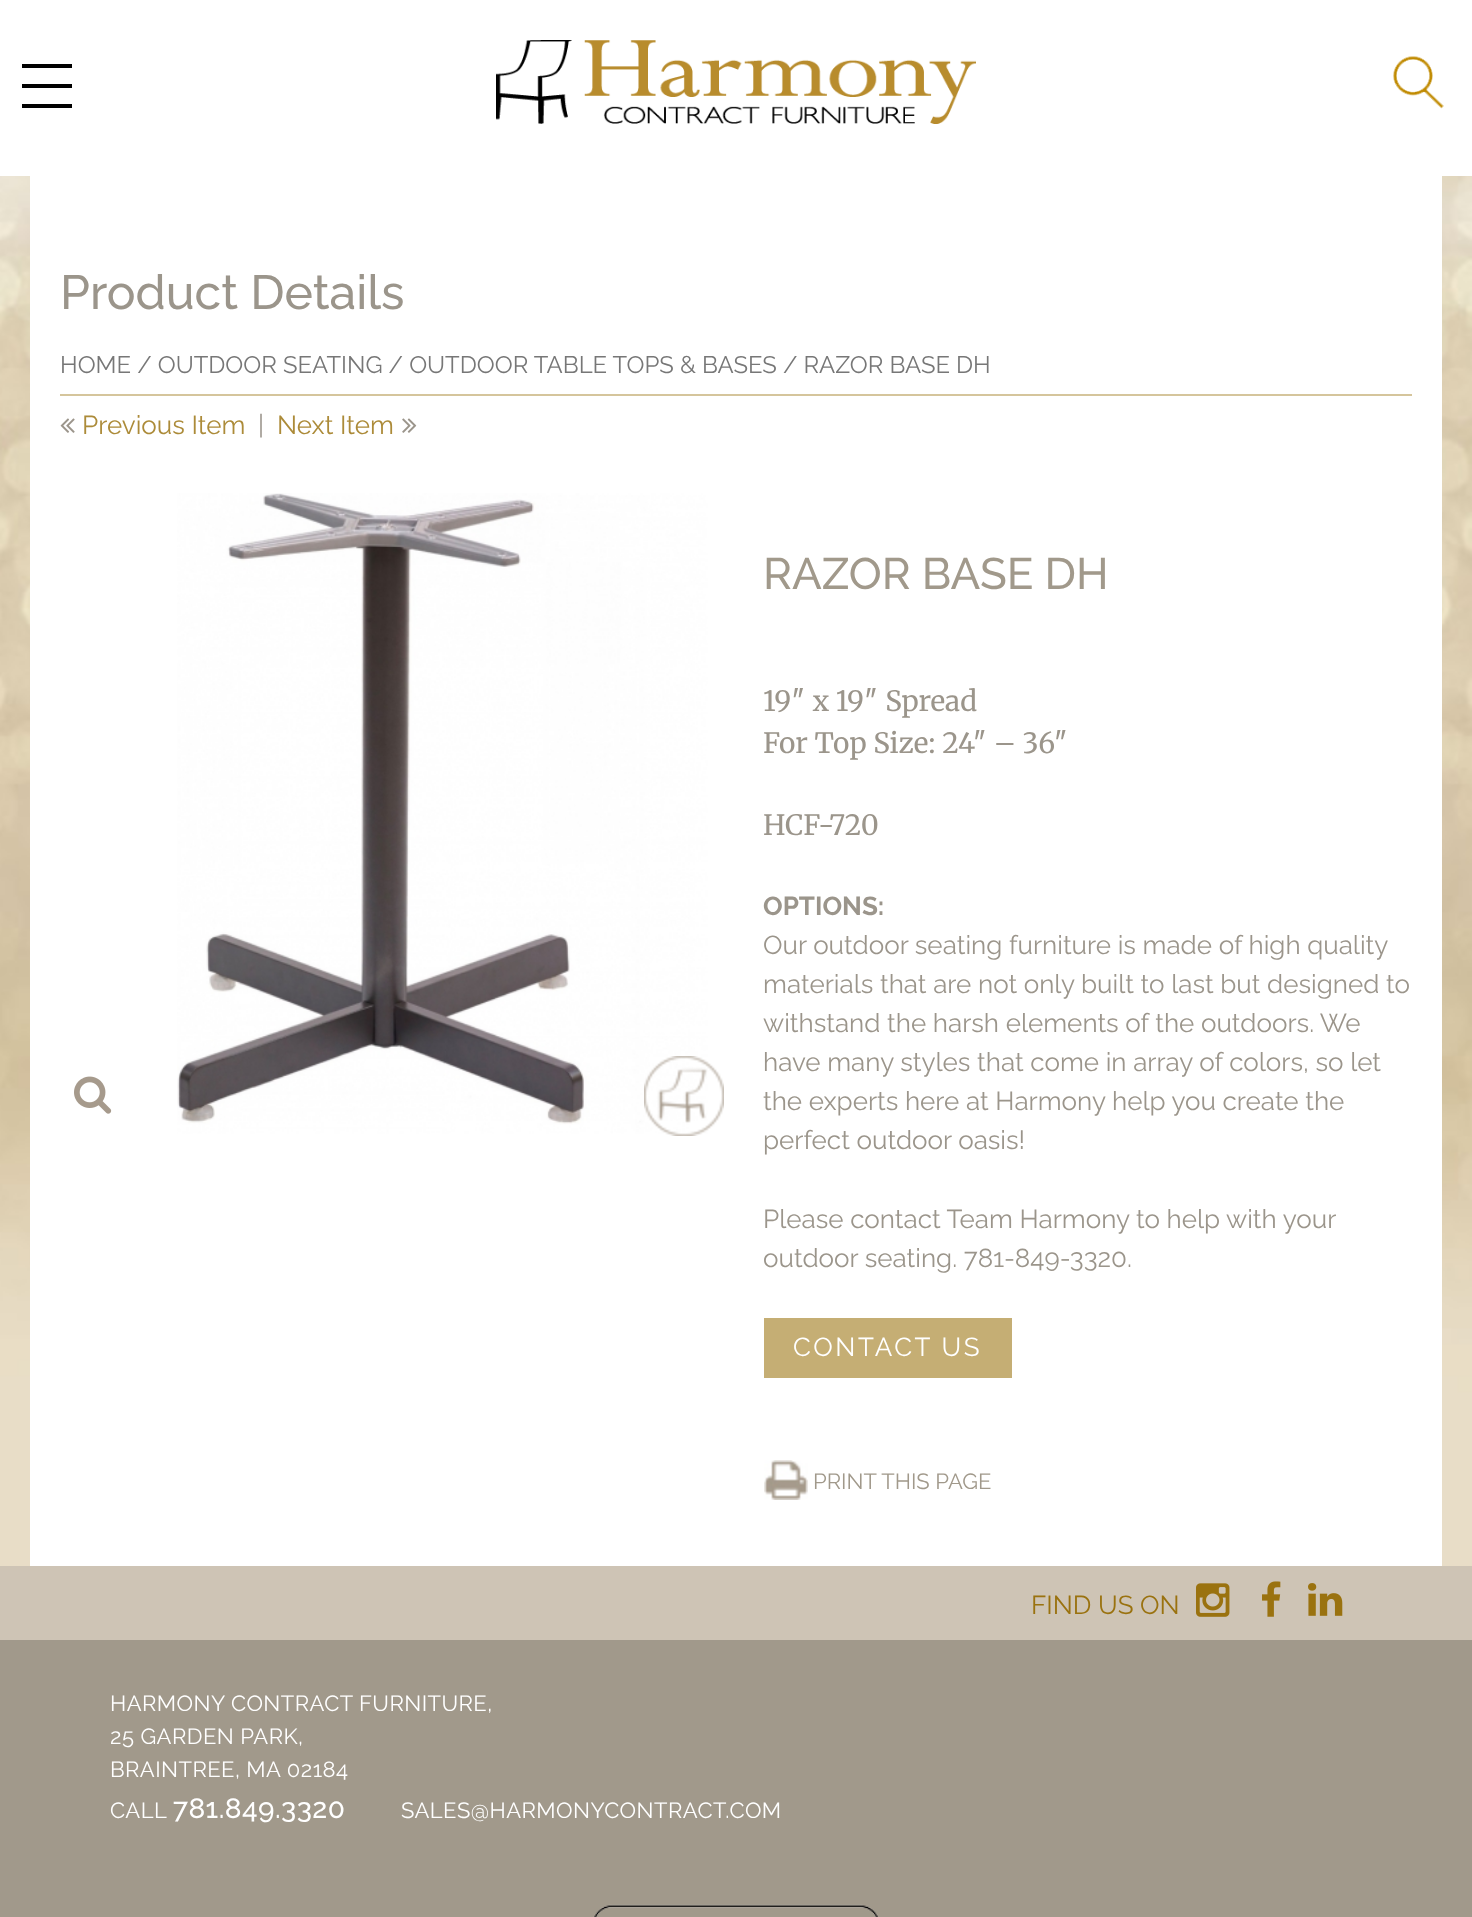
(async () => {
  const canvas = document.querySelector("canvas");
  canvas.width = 1472;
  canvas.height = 1917;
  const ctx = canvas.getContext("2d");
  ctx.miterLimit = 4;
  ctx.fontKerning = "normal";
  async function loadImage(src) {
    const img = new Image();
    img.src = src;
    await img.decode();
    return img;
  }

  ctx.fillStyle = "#ffffff";
  ctx.fillRect(0, 0, 1472, 1917);
  ctx.drawImage(await loadImage("img/1.png"), 0, 176, 1472, 1390);
  for (const [x, y, w, h, color] of [
    [22, 84, 50, 4, "#000000"],
    [22, 64, 50, 4, "#000000"],
    [22, 104, 50, 4, "#000000"],
  ]) {
    ctx.fillStyle = color;
    ctx.fillRect(x, y, w, h);
  }
  ctx.drawImage(await loadImage("img/2.png"), 496, 40, 480, 84);
  ctx.drawImage(await loadImage("img/3.png"), 1393, 56, 51, 53);
  ctx.fillStyle = "#ffffff";
  ctx.fillRect(30, 176, 1412, 1390);
  ctx.fillStyle = "#d5c59c";
  ctx.fillRect(60, 394, 1352, 2);
  ctx.drawImage(await loadImage("img/4.png"), 60, 418, 15, 15);
  ctx.drawImage(await loadImage("img/5.png"), 402, 418, 15, 15);
  ctx.drawImage(await loadImage("img/6.png"), 177, 493, 531, 641);
  ctx.drawImage(await loadImage("img/7.png"), 74, 1076, 38, 38);
  ctx.drawImage(await loadImage("img/8.png"), 644, 1056, 80, 80);
  ctx.fillStyle = "#c5ae74";
  ctx.fillRect(764, 1318, 248, 60);
  ctx.drawImage(await loadImage("img/9.png"), 764, 1460, 44, 40);
  ctx.fillStyle = "#cec4b5";
  ctx.fillRect(0, 1566, 1472, 74);
  ctx.drawImage(await loadImage("img/10.png"), 1196, 1583, 34, 34);
  ctx.drawImage(await loadImage("img/11.png"), 1262, 1581, 19, 36);
  ctx.drawImage(await loadImage("img/12.png"), 1308, 1583, 35, 33);
  ctx.fillStyle = "#a1998b";
  ctx.fillRect(0, 1640, 1472, 277);
  ctx.drawImage(await loadImage("img/13.png"), 593, 1904, 285, 13);
  ctx.font = "500 48px Raleway";
  ctx.fillStyle = "#9b958b";
  ctx.fillText("Product Details", 60, 309);
  ctx.font = "23.9px Raleway";
  ctx.fillStyle = "#777777";
  ctx.fillText("HOME / OUTDOOR SEATING / OUTDOOR TABLE TOPS & BASES / RAZOR BASE DH", 60, 373);
  ctx.font = "26px Raleway";
  ctx.fillStyle = "#ac8b39";
  ctx.fillText("Previous Item", 82, 434);
  ctx.fillStyle = "#9b958b";
  ctx.fillText("|", 258, 434);
  ctx.fillStyle = "#ac8b39";
  ctx.fillText("Next Item", 277, 434);
  ctx.font = "500 44px Raleway";
  ctx.fillStyle = "#a1998b";
  ctx.fillText("RAZOR BASE DH", 763, 589);
  ctx.font = "300 28px Merriweather";
  ctx.fillStyle = "#9b958b";
  for (const [text, x, y] of [
    ["19″ x 19″ Spread", 763, 711],
    ["For Top Size: 24″ – 36″", 763, 753],
    ["HCF-720", 763, 835],
  ]) {
    ctx.fillText(text, x, y);
  }
  ctx.font = "bold 26px Raleway";
  ctx.fillText("OPTIONS:", 763, 915);
  ctx.font = "26px Raleway";
  for (const [text, x, y] of [
    ["Our outdoor seating furniture is made of high quality", 763, 954],
    ["materials that are not only built to last but designed to", 763, 993],
    ["withstand the harsh elements of the outdoors. We", 763, 1032],
    ["have many styles that come in array of colors, so let", 763, 1071],
    ["the experts here at Harmony help you create the", 763, 1110],
    ["perfect outdoor oasis!", 763, 1149],
    ["Please contact Team Harmony to help with your", 763, 1228],
    ["outdoor seating. 781-849-3320.", 763, 1267],
  ]) {
    ctx.fillText(text, x, y);
  }
  ctx.letterSpacing = "2.6px";
  ctx.fillStyle = "#ffffff";
  ctx.fillText("CONTACT US", 793, 1356);
  ctx.letterSpacing = "0px";
  ctx.font = "22px Raleway";
  ctx.fillStyle = "#a1998b";
  ctx.fillText("PRINT THIS PAGE", 813, 1489);
  ctx.font = "26px Raleway";
  ctx.fillStyle = "#9a720f";
  ctx.fillText("FIND US ON", 1031, 1614);
  ctx.letterSpacing = "0.45px";
  ctx.font = "22px Raleway";
  ctx.fillStyle = "#ffffff";
  for (const [text, x, y] of [
    ["HARMONY CONTRACT FURNITURE,", 110, 1711],
    ["25 GARDEN PARK,", 110, 1744],
    ["BRAINTREE, MA 02184", 110, 1777],
    ["CALL", 110, 1818],
  ]) {
    ctx.fillText(text, x, y);
  }
  ctx.font = "500 28px Raleway";
  ctx.fillText("781.849.3320", 173, 1818);
  ctx.font = "22px Raleway";
  ctx.fillText("SALES@HARMONYCONTRACT.COM", 401, 1818);
})();
